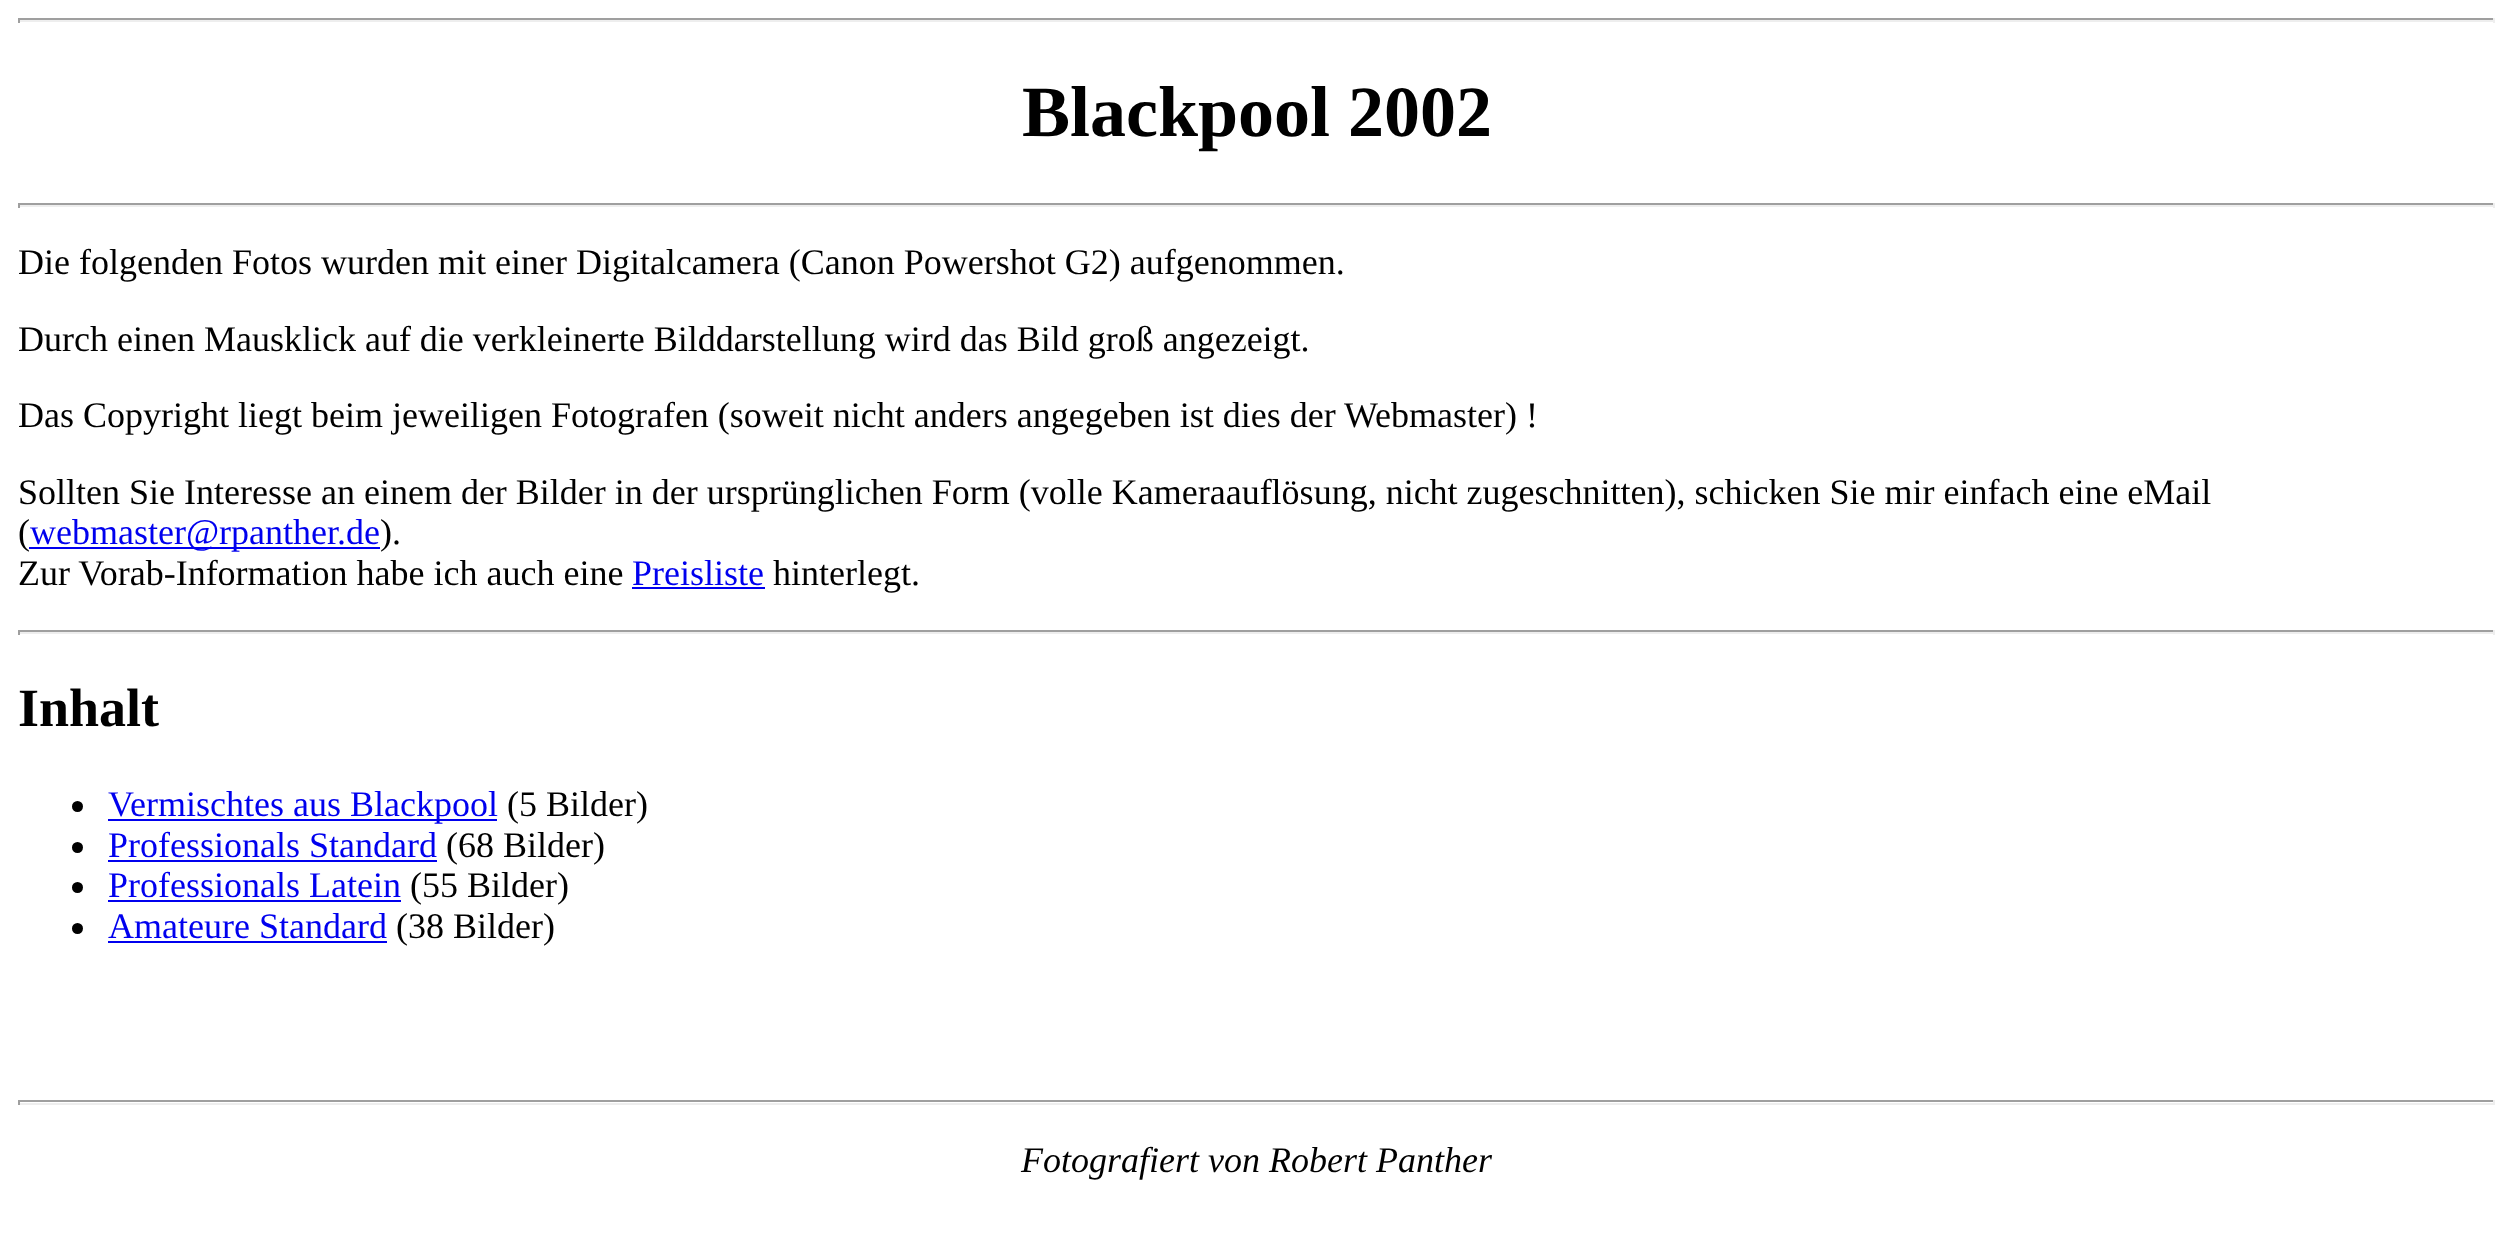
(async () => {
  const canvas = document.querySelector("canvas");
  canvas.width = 2512;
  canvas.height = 1235;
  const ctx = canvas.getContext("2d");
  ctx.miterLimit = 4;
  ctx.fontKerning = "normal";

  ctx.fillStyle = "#ffffff";
  ctx.fillRect(0, 0, 2512, 1235);
  for (const [x, y, w, h, color] of [
    [18, 18, 2477, 2, "#9f9f9f"],
    [2493, 18, 2, 5, "#eeeeee"],
    [18, 20, 2477, 2, "#eeeeee"],
    [18, 18, 2, 5, "#9f9f9f"],
    [18, 203, 2477, 2, "#9f9f9f"],
    [2493, 203, 2, 5, "#eeeeee"],
    [18, 205, 2477, 2, "#eeeeee"],
    [18, 203, 2, 5, "#9f9f9f"],
    [29, 547, 351, 2, "#0000ee"],
    [632, 587, 133, 2, "#0000ee"],
    [18, 630, 2477, 2, "#9f9f9f"],
    [2493, 630, 2, 5, "#eeeeee"],
    [18, 632, 2477, 2, "#eeeeee"],
    [18, 630, 2, 5, "#9f9f9f"],
  ]) {
    ctx.fillStyle = color;
    ctx.fillRect(x, y, w, h);
  }
  ctx.fillStyle = "#000000";
  ctx.beginPath();
  ctx.arc(77.5, 806.5, 5.5, 0, Math.PI * 2);
  ctx.fill();
  ctx.fillStyle = "#0000ee";
  ctx.fillRect(108, 819, 389, 2);
  ctx.fillStyle = "#000000";
  ctx.beginPath();
  ctx.arc(77.5, 847.5, 5.5, 0, Math.PI * 2);
  ctx.fill();
  ctx.fillStyle = "#0000ee";
  ctx.fillRect(108, 860, 329, 2);
  ctx.fillStyle = "#000000";
  ctx.beginPath();
  ctx.arc(77.5, 887.5, 5.5, 0, Math.PI * 2);
  ctx.fill();
  ctx.fillStyle = "#0000ee";
  ctx.fillRect(108, 900, 293, 2);
  ctx.fillStyle = "#000000";
  ctx.beginPath();
  ctx.arc(77.5, 928.5, 5.5, 0, Math.PI * 2);
  ctx.fill();
  for (const [x, y, w, h, color] of [
    [108, 941, 279, 2, "#0000ee"],
    [18, 1100, 2477, 2, "#9f9f9f"],
    [2493, 1100, 2, 5, "#eeeeee"],
    [18, 1103, 2477, 2, "#eeeeee"],
    [18, 1100, 2, 5, "#9f9f9f"],
  ]) {
    ctx.fillStyle = color;
    ctx.fillRect(x, y, w, h);
  }
  ctx.font = "bold 72px Liberation Serif";
  ctx.fillStyle = "#000000";
  ctx.fillText("Blackpool 2002", 1022, 136);
  ctx.font = "36px Liberation Serif";
  for (const [text, x, y] of [
    ["Die folgenden Fotos wurden mit einer Digitalcamera (Canon Powershot G2) aufgenommen.", 18, 274],
    ["Durch einen Mausklick auf die verkleinerte Bilddarstellung wird das Bild groß angezeigt.", 18, 351],
    ["Das Copyright liegt beim jeweiligen Fotografen (soweit nicht anders angegeben ist dies der Webmaster) !", 18, 427],
    ["Sollten Sie Interesse an einem der Bilder in der ursprünglichen Form (volle Kameraauflösung, nicht zugeschnitten), schicken Sie mir einfach eine eMail", 18, 504],
    ["(", 18, 544],
  ]) {
    ctx.fillText(text, x, y);
  }
  ctx.fillStyle = "#0000ee";
  ctx.fillText("webmaster@rpanther.de", 30, 544);
  ctx.fillStyle = "#000000";
  ctx.fillText(").", 380, 544);
  ctx.fillText("Zur Vorab-Information habe ich auch eine", 18, 585);
  ctx.fillStyle = "#0000ee";
  ctx.fillText("Preisliste", 632, 585);
  ctx.fillStyle = "#000000";
  ctx.fillText("hinterlegt.", 773, 585);
  ctx.font = "bold 54px Liberation Serif";
  ctx.fillText("Inhalt", 18, 726);
  ctx.font = "36px Liberation Serif";
  ctx.fillStyle = "#0000ee";
  ctx.fillText("Vermischtes aus Blackpool", 108, 816);
  ctx.fillStyle = "#000000";
  ctx.fillText("(5 Bilder)", 507, 816);
  ctx.fillStyle = "#0000ee";
  ctx.fillText("Professionals Standard", 108, 857);
  ctx.fillStyle = "#000000";
  ctx.fillText("(68 Bilder)", 446, 857);
  ctx.fillStyle = "#0000ee";
  ctx.fillText("Professionals Latein", 108, 897);
  ctx.fillStyle = "#000000";
  ctx.fillText("(55 Bilder)", 410, 897);
  ctx.fillStyle = "#0000ee";
  ctx.fillText("Amateure Standard", 108, 938);
  ctx.fillStyle = "#000000";
  ctx.fillText("(38 Bilder)", 396, 938);
  ctx.font = "italic 36px Liberation Serif";
  ctx.fillText("Fotografiert von Robert Panther", 1021, 1172);
})();
